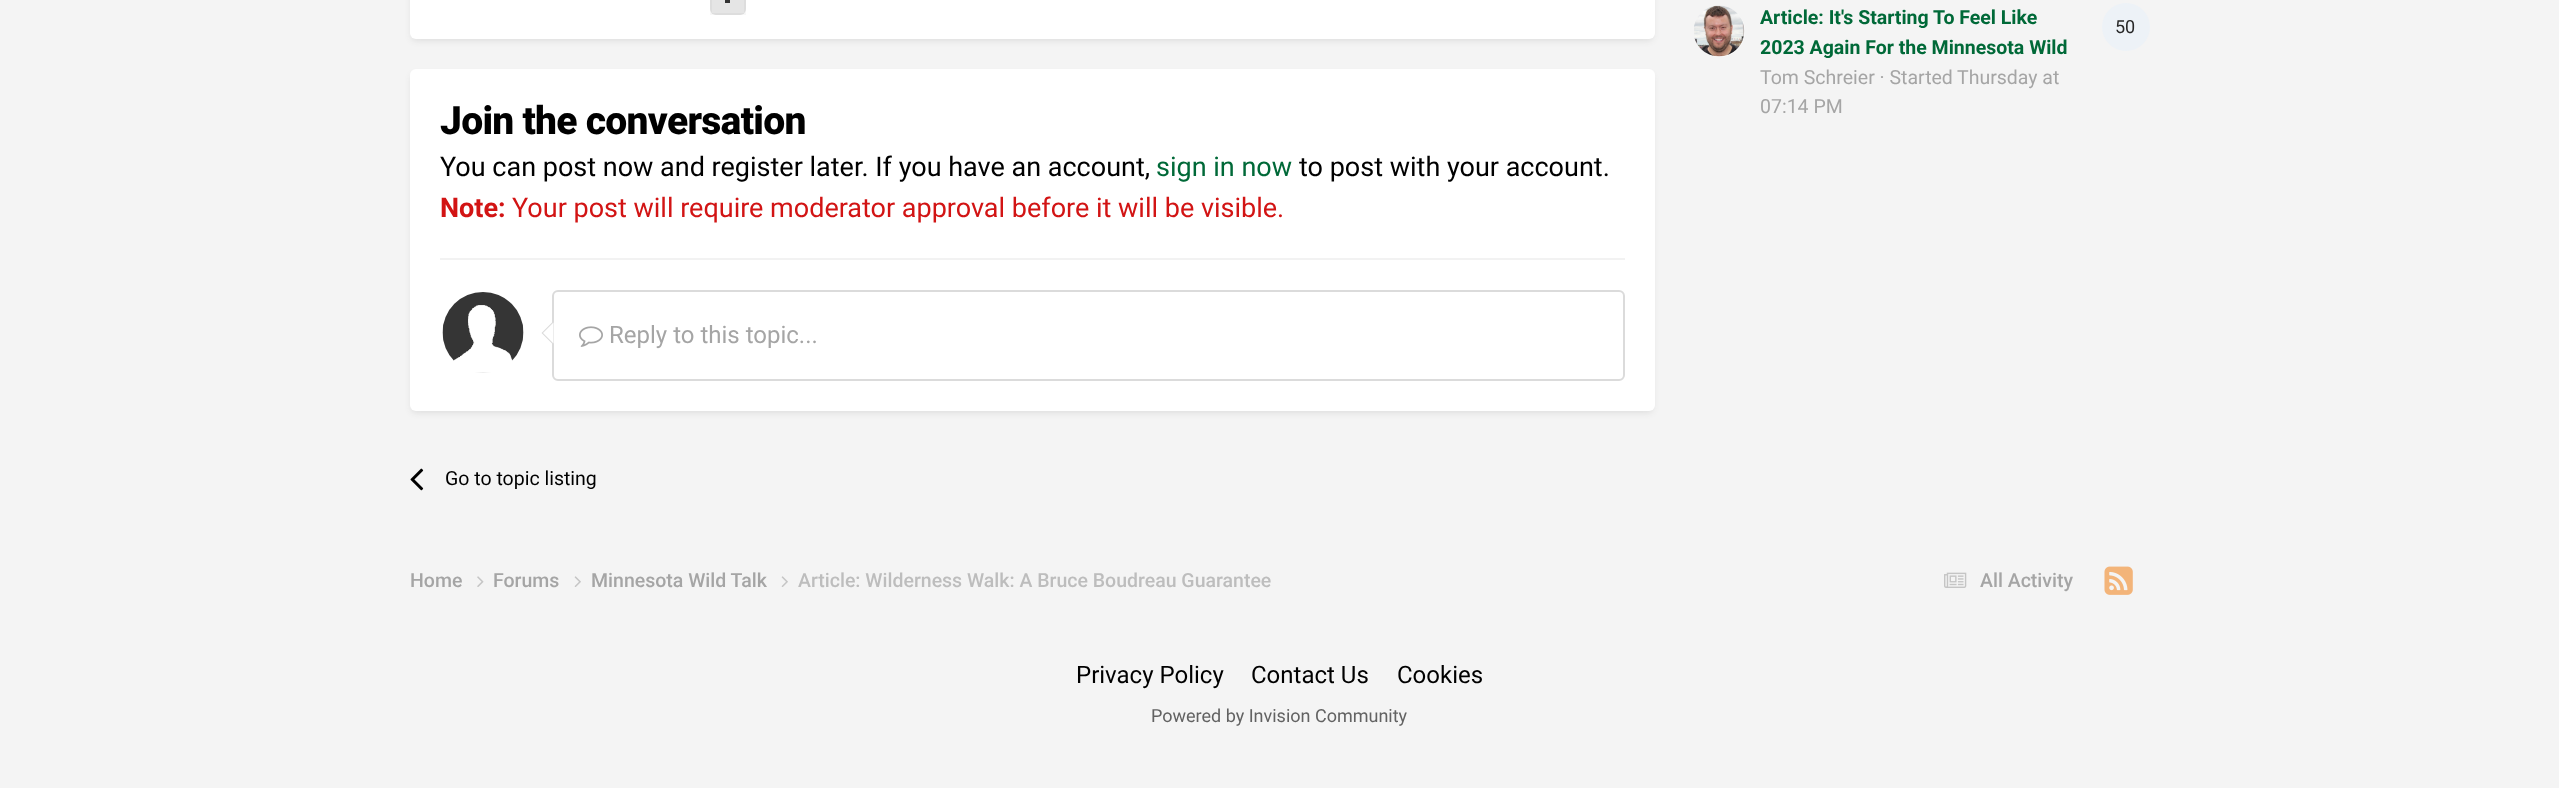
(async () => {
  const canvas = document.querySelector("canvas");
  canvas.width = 2559;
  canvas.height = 788;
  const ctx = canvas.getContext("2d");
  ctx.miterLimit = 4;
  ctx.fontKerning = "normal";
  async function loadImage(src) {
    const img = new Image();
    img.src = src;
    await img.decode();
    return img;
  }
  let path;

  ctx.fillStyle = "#f4f4f4";
  ctx.fillRect(0, 0, 2559, 788);
  ctx.fillStyle = "#ffffff";
  ctx.beginPath();
  ctx.arc(1719.5, 31.5, 25.5, 0, Math.PI * 2);
  ctx.fill();
  ctx.drawImage(await loadImage("img/1.png"), 1694, 5, 51, 52);
  ctx.fillStyle = "#edf2f7";
  ctx.beginPath();
  ctx.arc(2126, 27, 24, 0, Math.PI * 2);
  ctx.fill();
  ctx.fillStyle = "rgba(40, 40, 40, 0.1)";
  ctx.filter = "blur(3px)";
  ctx.beginPath();
  ctx.roundRect(411, -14, 1242, 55, 5);
  ctx.fill();
  ctx.filter = "none";
  ctx.fillStyle = "#ffffff";
  ctx.beginPath();
  ctx.roundRect(410, -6, 1245, 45, 6);
  ctx.fill();
  ctx.fillStyle = "#e5e5e5";
  ctx.beginPath();
  ctx.roundRect(710, -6, 36, 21, 6);
  ctx.fill();
  ctx.strokeStyle = "rgba(0, 0, 0, 0.03)";
  ctx.lineWidth = 2;
  ctx.strokeRect(711, -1, 34, 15);
  ctx.fillStyle = "#333333";
  ctx.fillRect(725, 0, 5, 3);
  ctx.fillStyle = "rgba(40, 40, 40, 0.1)";
  ctx.filter = "blur(3px)";
  ctx.beginPath();
  ctx.roundRect(411, 74, 1242, 339, 5);
  ctx.fill();
  ctx.filter = "none";
  ctx.fillStyle = "#ffffff";
  ctx.beginPath();
  ctx.roundRect(410, 69, 1245, 342, 6);
  ctx.fill();
  ctx.fillStyle = "#f2f2f2";
  ctx.fillRect(440, 258, 1185, 2);
  ctx.drawImage(await loadImage("img/2.png"), 442, 292, 82, 81);
  ctx.beginPath();
  ctx.roundRect(553, 291, 1071, 89, 5);
  ctx.strokeStyle = "#dbdbdb";
  ctx.stroke();
  ctx.fillStyle = "#dbdbdb";
  path = new Path2D("M552 322.5V343.5L541.5 333Z");
  ctx.fill(path);
  ctx.fillStyle = "#ffffff";
  path = new Path2D("M553.5 322.5V343.5L543 333Z");
  ctx.fill(path);
  ctx.drawImage(await loadImage("img/3.png"), 579, 326, 24, 21);
  ctx.drawImage(await loadImage("img/4.png"), 410, 468, 14, 23);
  ctx.drawImage(await loadImage("img/5.png"), 477, 576, 7, 11);
  ctx.drawImage(await loadImage("img/6.png"), 574, 576, 7, 11);
  ctx.drawImage(await loadImage("img/6.png"), 781, 576, 7, 11);
  ctx.drawImage(await loadImage("img/7.png"), 1944, 572, 23, 16);
  ctx.drawImage(await loadImage("img/8.png"), 2104, 566, 29, 29);
  ctx.font = "bold 19.5px Roboto";
  ctx.fillStyle = "#006938";
  ctx.fillText("Article: It's Starting To Feel Like", 1760, 24);
  ctx.fillText("2023 Again For the Minnesota Wild", 1760, 54);
  ctx.font = "18px Roboto";
  ctx.fillStyle = "#282828";
  ctx.fillText("50", 2115, 33);
  ctx.font = "19.5px Roboto";
  ctx.fillStyle = "#a5a5a5";
  for (const [text, x, y] of [
    ["Tom Schreier · Started", 1760, 84],
    ["Thursday at", 1957, 84],
    ["07:14 PM", 1760, 113],
  ]) {
    ctx.fillText(text, x, y);
  }
  ctx.letterSpacing = "-0.75px";
  ctx.font = "800 39px Heebo";
  ctx.fillStyle = "#000000";
  ctx.fillText("Join the conversation", 440, 134);
  ctx.letterSpacing = "0px";
  ctx.font = "27px Roboto";
  ctx.fillText("You can post now and register later. If you have an account,", 440, 176);
  ctx.fillStyle = "#006938";
  ctx.fillText("sign in now", 1156, 176);
  ctx.fillStyle = "#000000";
  ctx.fillText("to post with your account.", 1299, 176);
  ctx.font = "bold 27px Roboto";
  ctx.fillStyle = "#d21414";
  ctx.fillText("Note:", 440, 217);
  ctx.font = "27px Roboto";
  ctx.fillText("Your post will require moderator approval before it will be visible.", 512, 217);
  ctx.font = "24px Roboto";
  ctx.fillStyle = "#a5a5a5";
  ctx.fillText("Reply to this topic...", 609, 343);
  ctx.font = "19.5px Roboto";
  ctx.fillStyle = "#000000";
  ctx.fillText("Go to topic listing", 445, 485);
  ctx.font = "500 19.5px Roboto";
  ctx.fillStyle = "#a5a5a5";
  for (const [text, x, y] of [
    ["Home", 410, 587],
    ["Forums", 493, 587],
    ["Minnesota Wild Talk", 591, 587],
  ]) {
    ctx.fillText(text, x, y);
  }
  ctx.fillStyle = "#bdbdbd";
  ctx.fillText("Article: Wilderness Walk: A Bruce Boudreau Guarantee", 798, 587);
  ctx.fillStyle = "#a5a5a5";
  ctx.fillText("All Activity", 1980, 587);
  ctx.font = "24px Roboto";
  ctx.fillStyle = "#000000";
  for (const [text, x, y] of [
    ["Privacy Policy", 1076, 683],
    ["Contact Us", 1251, 683],
    ["Cookies", 1397, 683],
  ]) {
    ctx.fillText(text, x, y);
  }
  ctx.font = "18px Roboto";
  ctx.fillStyle = "#626262";
  ctx.fillText("Powered by Invision Community", 1151, 722);
})();
